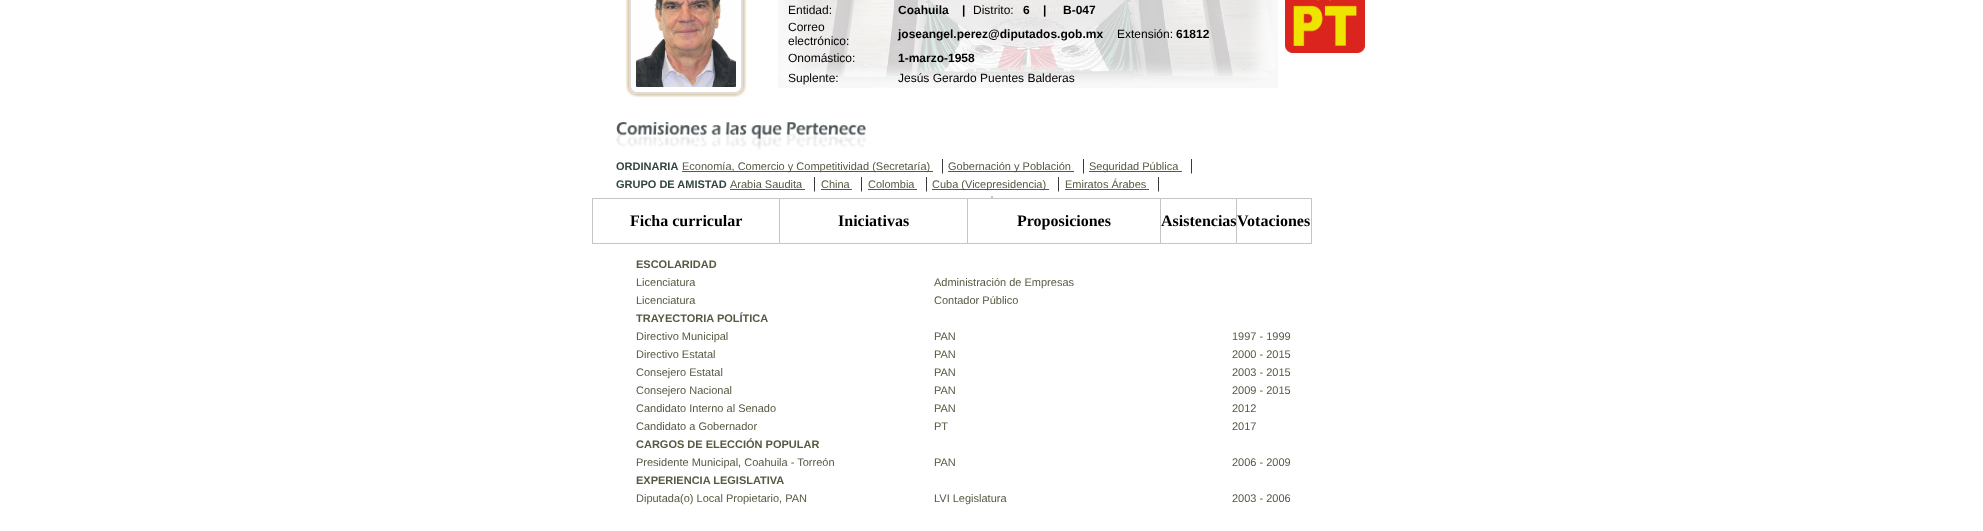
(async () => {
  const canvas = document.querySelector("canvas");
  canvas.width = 1983;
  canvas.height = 531;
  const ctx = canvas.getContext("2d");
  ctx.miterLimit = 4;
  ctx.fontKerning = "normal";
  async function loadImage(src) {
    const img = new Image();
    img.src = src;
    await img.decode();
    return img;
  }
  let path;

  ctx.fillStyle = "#ffffff";
  ctx.fillRect(0, 0, 1983, 531);
  ctx.save();
  path = new Path2D("M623 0H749V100H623ZM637-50H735C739.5-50 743-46.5 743-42V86C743 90.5 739.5 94 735 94H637C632.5 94 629 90.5 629 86V-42C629-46.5 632.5-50 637-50Z");
  ctx.clip(path, "evenodd");
  ctx.fillStyle = "rgba(167, 120, 37, 0.4)";
  ctx.filter = "blur(1px)";
  ctx.beginPath();
  ctx.roundRect(627, -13, 118, 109, 10);
  ctx.fill();
  ctx.filter = "none";
  ctx.restore();
  ctx.beginPath();
  ctx.roundRect(630, -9, 112, 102, 7);
  ctx.strokeStyle = "#dddddd";
  ctx.lineWidth = 2;
  ctx.stroke();
  ctx.drawImage(await loadImage("img/1.png"), 636, 0, 100, 87);
  ctx.drawImage(await loadImage("img/2.png"), 778, 0, 500, 88);
  ctx.drawImage(await loadImage("img/3.png"), 1285, 0, 80, 53);
  ctx.drawImage(await loadImage("img/4.png"), 616, 122, 250, 28);
  for (const [x, y, w, h, color] of [
    [682, 171, 251, 1, "#595843"],
    [948, 171, 126, 1, "#595843"],
    [1089, 171, 93, 1, "#595843"],
    [730, 189, 75, 1, "#595843"],
    [821, 189, 31, 1, "#595843"],
    [868, 189, 49, 1, "#595843"],
    [932, 189, 117, 1, "#595843"],
    [1065, 189, 84, 1, "#595843"],
    [991, 196, 2, 2, "#c4c4c4"],
    [1236, 198, 76, 1, "#c4c4c4"],
    [1311, 198, 1, 46, "#c4c4c4"],
    [1236, 243, 76, 1, "#c4c4c4"],
    [1236, 198, 1, 46, "#c4c4c4"],
    [1160, 198, 77, 1, "#c4c4c4"],
    [1160, 243, 77, 1, "#c4c4c4"],
    [1160, 198, 1, 46, "#c4c4c4"],
    [967, 198, 194, 1, "#c4c4c4"],
    [967, 243, 194, 1, "#c4c4c4"],
    [967, 198, 1, 46, "#c4c4c4"],
    [779, 198, 189, 1, "#c4c4c4"],
    [779, 243, 189, 1, "#c4c4c4"],
    [779, 198, 1, 46, "#c4c4c4"],
    [592, 198, 188, 1, "#c4c4c4"],
    [592, 243, 188, 1, "#c4c4c4"],
    [592, 198, 1, 46, "#c4c4c4"],
  ]) {
    ctx.fillStyle = color;
    ctx.fillRect(x, y, w, h);
  }
  ctx.font = "12px Liberation Sans";
  ctx.fillStyle = "#000000";
  ctx.fillText("Entidad:", 788, 14);
  ctx.font = "bold 12px Liberation Sans";
  ctx.fillText("Coahuila", 898, 14);
  ctx.fillText("|", 962, 14);
  ctx.font = "12px Liberation Sans";
  ctx.fillText("Distrito:", 973, 14);
  ctx.font = "bold 12px Liberation Sans";
  for (const [text, x, y] of [
    ["6", 1023, 14],
    ["|", 1043, 14],
    ["B-047", 1063, 14],
  ]) {
    ctx.fillText(text, x, y);
  }
  ctx.font = "12px Liberation Sans";
  ctx.fillText("Correo", 788, 31);
  ctx.fillText("electrónico:", 788, 45);
  ctx.font = "bold 12px Liberation Sans";
  ctx.fillText("joseangel.perez@diputados.gob.mx", 898, 38);
  ctx.font = "12px Liberation Sans";
  ctx.fillText("Extensión:", 1117, 38);
  ctx.font = "bold 12px Liberation Sans";
  ctx.fillText("61812", 1176, 38);
  ctx.font = "12px Liberation Sans";
  ctx.fillText("Onomástico:", 788, 62);
  ctx.font = "bold 12px Liberation Sans";
  ctx.fillText("1-marzo-1958", 898, 62);
  ctx.font = "12px Liberation Sans";
  ctx.fillText("Suplente:", 788, 82);
  ctx.fillText("Jesús Gerardo Puentes Balderas", 898, 82);
  ctx.font = "bold 11px Liberation Sans";
  ctx.fillStyle = "#31443f";
  ctx.fillText("ORDINARIA", 616, 170);
  ctx.font = "11px Liberation Sans";
  ctx.fillStyle = "#595843";
  ctx.fillText("Economía, Comercio y Competitividad (Secretaría)", 682, 170);
  ctx.font = "16px Liberation Serif";
  ctx.fillStyle = "#000000";
  ctx.fillText("|", 941, 170);
  ctx.font = "11px Liberation Sans";
  ctx.fillStyle = "#595843";
  ctx.fillText("Gobernación y Población", 948, 170);
  ctx.font = "16px Liberation Serif";
  ctx.fillStyle = "#000000";
  ctx.fillText("|", 1082, 170);
  ctx.font = "11px Liberation Sans";
  ctx.fillStyle = "#595843";
  ctx.fillText("Seguridad Pública", 1089, 170);
  ctx.font = "16px Liberation Serif";
  ctx.fillStyle = "#000000";
  ctx.fillText("|", 1190, 170);
  ctx.font = "bold 11px Liberation Sans";
  ctx.fillStyle = "#31443f";
  ctx.fillText("GRUPO DE AMISTAD", 616, 188);
  ctx.font = "11px Liberation Sans";
  ctx.fillStyle = "#595843";
  ctx.fillText("Arabia Saudita", 730, 188);
  ctx.font = "16px Liberation Serif";
  ctx.fillStyle = "#000000";
  ctx.fillText("|", 813, 188);
  ctx.font = "11px Liberation Sans";
  ctx.fillStyle = "#595843";
  ctx.fillText("China", 821, 188);
  ctx.font = "16px Liberation Serif";
  ctx.fillStyle = "#000000";
  ctx.fillText("|", 860, 188);
  ctx.font = "11px Liberation Sans";
  ctx.fillStyle = "#595843";
  ctx.fillText("Colombia", 868, 188);
  ctx.font = "16px Liberation Serif";
  ctx.fillStyle = "#000000";
  ctx.fillText("|", 925, 188);
  ctx.font = "11px Liberation Sans";
  ctx.fillStyle = "#595843";
  ctx.fillText("Cuba (Vicepresidencia)", 932, 188);
  ctx.font = "16px Liberation Serif";
  ctx.fillStyle = "#000000";
  ctx.fillText("|", 1057, 188);
  ctx.font = "11px Liberation Sans";
  ctx.fillStyle = "#595843";
  ctx.fillText("Emiratos Árabes", 1065, 188);
  ctx.font = "16px Liberation Serif";
  ctx.fillStyle = "#000000";
  ctx.fillText("|", 1157, 188);
  ctx.font = "bold 16px Liberation Serif";
  for (const [text, x, y] of [
    ["Ficha curricular", 630, 226],
    ["Iniciativas", 838, 226],
    ["Proposiciones", 1017, 226],
    ["Asistencias", 1161, 226],
    ["Votaciones", 1237, 226],
  ]) {
    ctx.fillText(text, x, y);
  }
  ctx.font = "bold 11px Liberation Sans";
  ctx.fillStyle = "#595843";
  ctx.fillText("ESCOLARIDAD", 636, 268);
  ctx.font = "11px Liberation Sans";
  for (const [text, x, y] of [
    ["Licenciatura", 636, 286],
    ["Administración de Empresas", 934, 286],
    ["Licenciatura", 636, 304],
    ["Contador Público", 934, 304],
  ]) {
    ctx.fillText(text, x, y);
  }
  ctx.font = "bold 11px Liberation Sans";
  ctx.fillText("TRAYECTORIA POLÍTICA", 636, 322);
  ctx.font = "11px Liberation Sans";
  for (const [text, x, y] of [
    ["Directivo Municipal", 636, 340],
    ["PAN", 934, 340],
    ["1997 - 1999", 1232, 340],
    ["Directivo Estatal", 636, 358],
    ["PAN", 934, 358],
    ["2000 - 2015", 1232, 358],
    ["Consejero Estatal", 636, 376],
    ["PAN", 934, 376],
    ["2003 - 2015", 1232, 376],
    ["Consejero Nacional", 636, 394],
    ["PAN", 934, 394],
    ["2009 - 2015", 1232, 394],
    ["Candidato Interno al Senado", 636, 412],
    ["PAN", 934, 412],
    ["2012", 1232, 412],
    ["Candidato a Gobernador", 636, 430],
    ["PT", 934, 430],
    ["2017", 1232, 430],
  ]) {
    ctx.fillText(text, x, y);
  }
  ctx.font = "bold 11px Liberation Sans";
  ctx.fillText("CARGOS DE ELECCIÓN POPULAR", 636, 448);
  ctx.font = "11px Liberation Sans";
  for (const [text, x, y] of [
    ["Presidente Municipal, Coahuila - Torreón", 636, 466],
    ["PAN", 934, 466],
    ["2006 - 2009", 1232, 466],
  ]) {
    ctx.fillText(text, x, y);
  }
  ctx.font = "bold 11px Liberation Sans";
  ctx.fillText("EXPERIENCIA LEGISLATIVA", 636, 484);
  ctx.font = "11px Liberation Sans";
  for (const [text, x, y] of [
    ["Diputada(o) Local Propietario, PAN", 636, 502],
    ["LVI Legislatura", 934, 502],
    ["2003 - 2006", 1232, 502],
  ]) {
    ctx.fillText(text, x, y);
  }
})();
